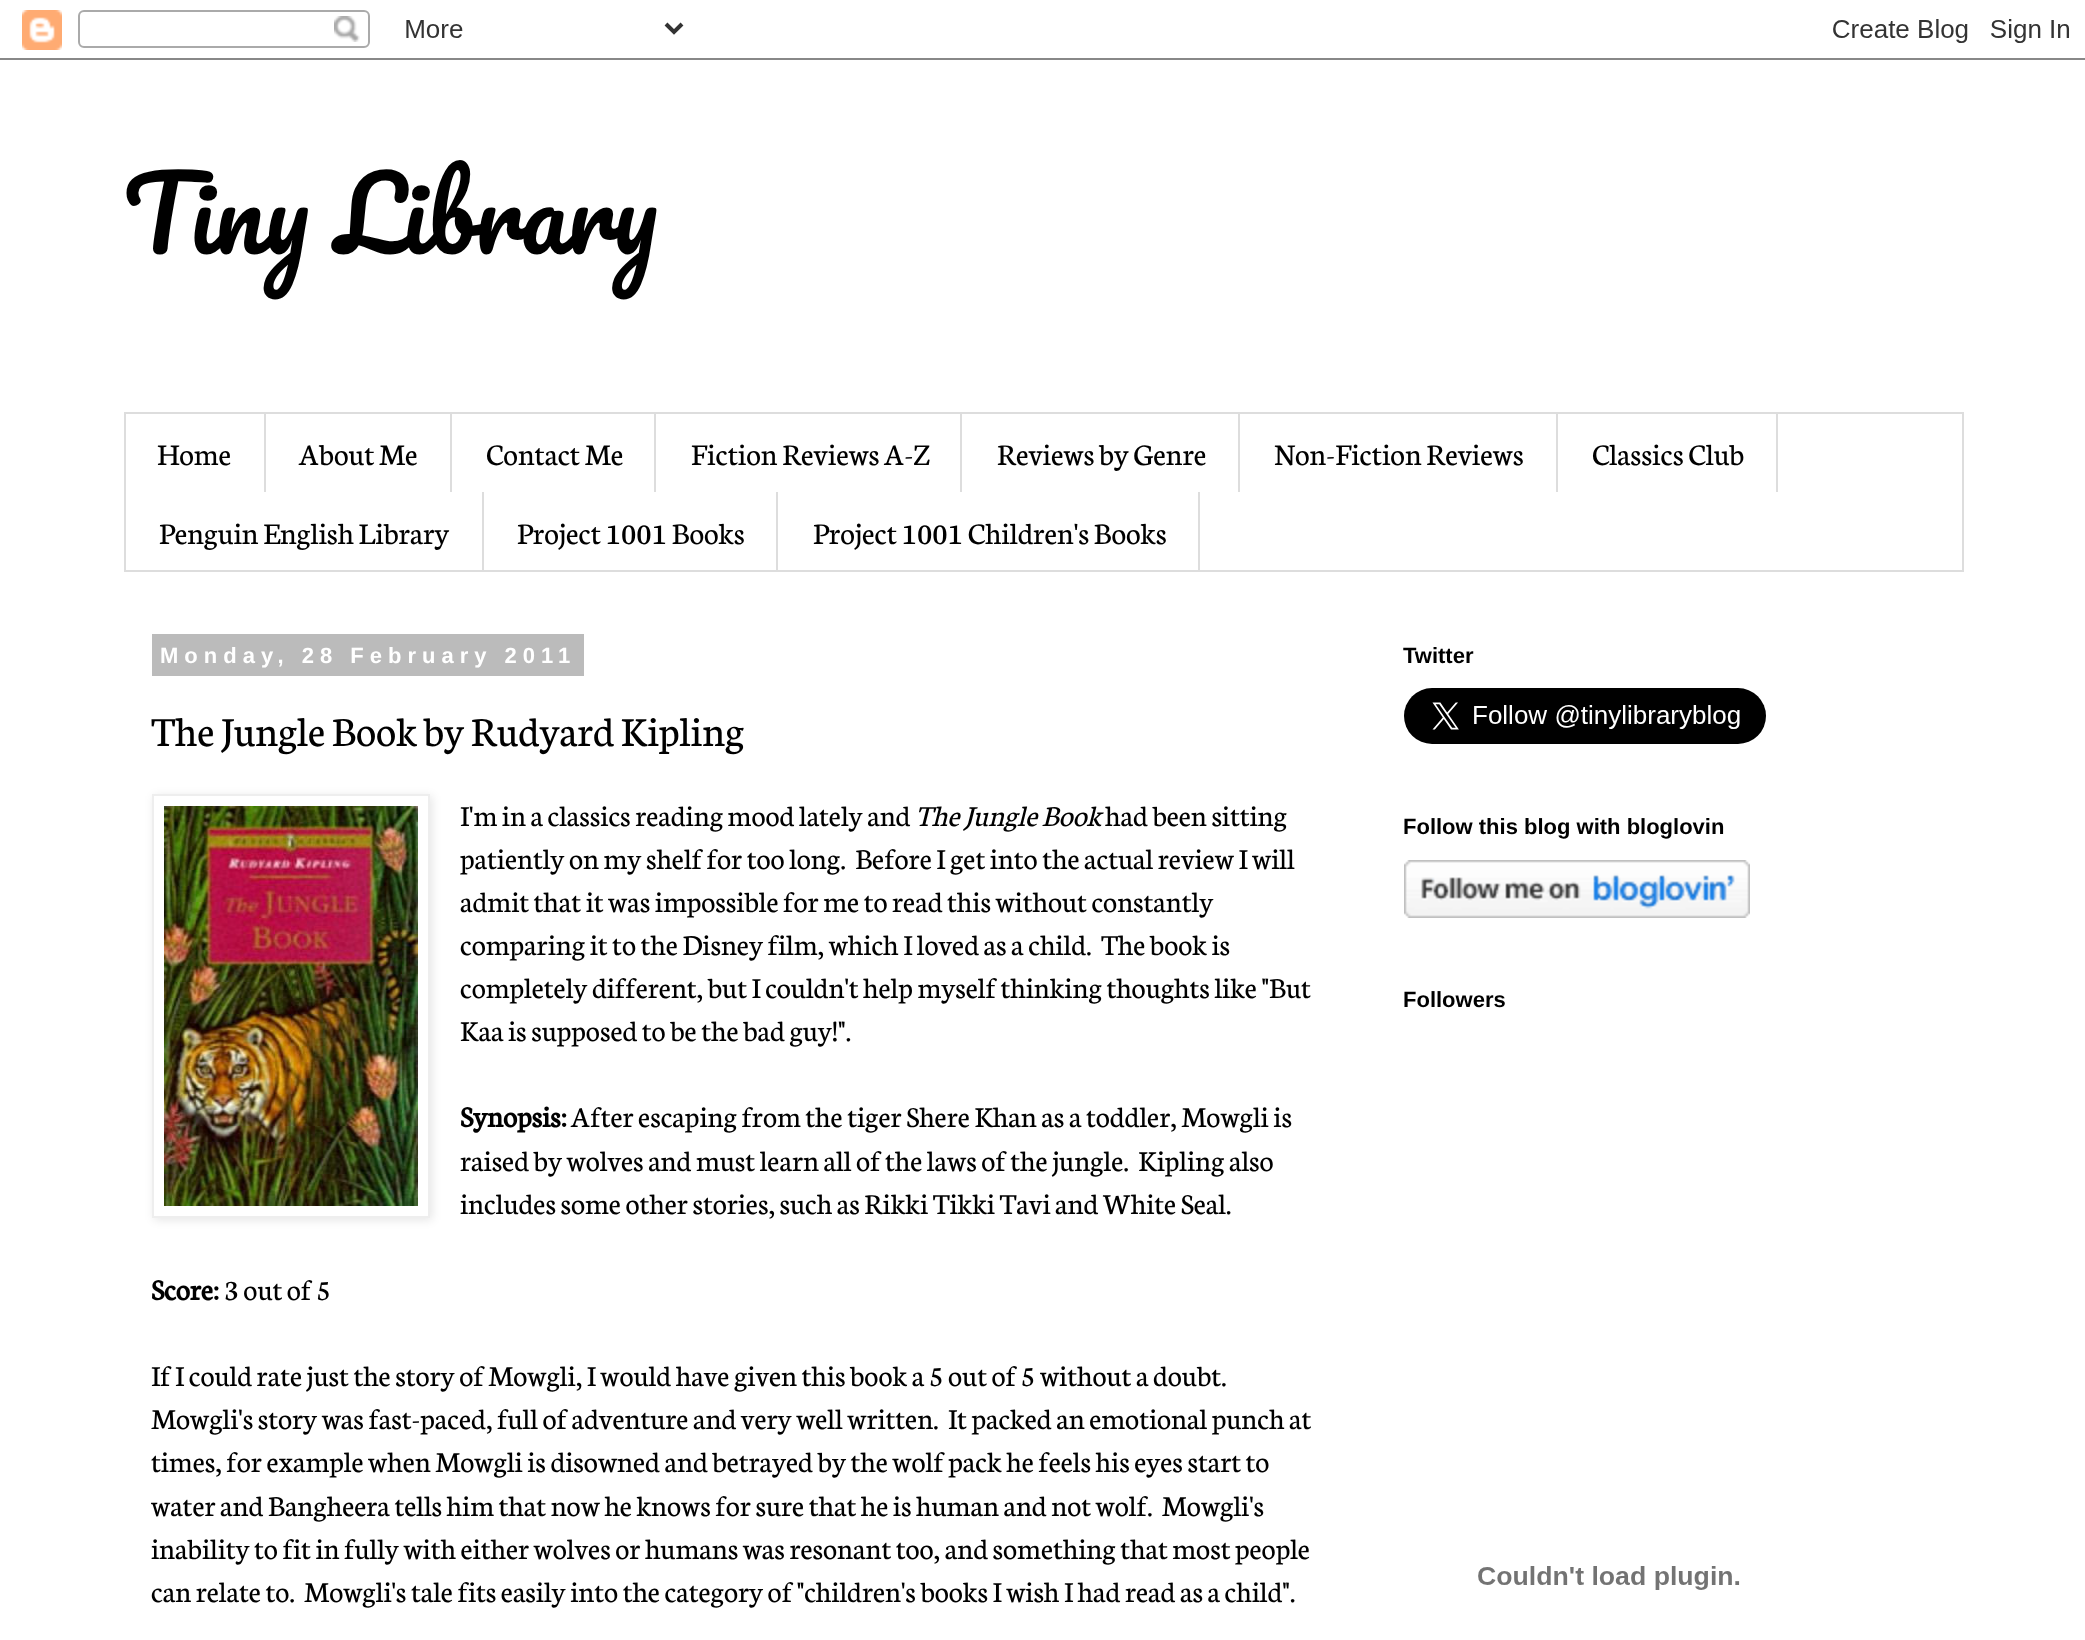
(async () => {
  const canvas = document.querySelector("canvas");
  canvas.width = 2085;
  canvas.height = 1640;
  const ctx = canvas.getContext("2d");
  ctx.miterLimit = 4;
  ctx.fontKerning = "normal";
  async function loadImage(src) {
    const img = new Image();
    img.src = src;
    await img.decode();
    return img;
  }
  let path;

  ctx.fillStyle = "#ffffff";
  ctx.fillRect(0, 0, 2085, 1640);
  ctx.drawImage(await loadImage("img/1.png"), 0, 10, 2085, 50);
  ctx.strokeStyle = "#dddddd";
  ctx.lineWidth = 2;
  ctx.strokeRect(125, 413, 1838, 158);
  for (const [x, y, w, h, color] of [
    [264, 414, 2, 78, "#dddddd"],
    [450, 414, 2, 78, "#dddddd"],
    [654, 414, 2, 78, "#dddddd"],
    [960, 414, 2, 78, "#dddddd"],
    [1238, 414, 2, 78, "#dddddd"],
    [1556, 414, 2, 78, "#dddddd"],
    [1776, 414, 2, 78, "#dddddd"],
    [482, 492, 2, 78, "#dddddd"],
    [776, 492, 2, 78, "#dddddd"],
    [1198, 492, 2, 78, "#dddddd"],
    [152, 634, 432, 42, "#bbbbbb"],
  ]) {
    ctx.fillStyle = color;
    ctx.fillRect(x, y, w, h);
  }
  ctx.save();
  path = new Path2D("M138 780H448V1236H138ZM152 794H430V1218H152Z");
  ctx.clip(path, "evenodd");
  ctx.fillStyle = "rgba(0, 0, 0, 0.1)";
  ctx.filter = "blur(5px)";
  ctx.beginPath();
  ctx.rect(154, 796, 278, 424);
  ctx.fill();
  ctx.filter = "none";
  ctx.restore();
  ctx.strokeStyle = "#eeeeee";
  ctx.strokeRect(153, 795, 276, 422);
  ctx.drawImage(await loadImage("img/2.png"), 164, 806, 254, 400);
  ctx.drawImage(await loadImage("img/3.png"), 1404, 688, 362, 56);
  ctx.drawImage(await loadImage("img/4.png"), 1404, 860, 346, 58);
  ctx.drawImage(await loadImage("img/5.png"), 1478, 1566, 262, 24);
  ctx.font = "100px Pacifico";
  ctx.fillStyle = "#000000";
  ctx.fillText("Tiny Library", 123, 254);
  ctx.font = "32px Neuton";
  for (const [text, x, y] of [
    ["Home", 157, 465],
    ["About Me", 299, 465],
    ["Contact Me", 486, 465],
    ["Fiction Reviews A-Z", 691, 465],
    ["Reviews by Genre", 997, 465],
    ["Non-Fiction Reviews", 1274, 465],
    ["Classics Club", 1592, 465],
    ["Penguin English Library", 159, 544],
    ["Project 1001 Books", 517, 544],
    ["Project 1001 Children's Books", 813, 544],
  ]) {
    ctx.fillText(text, x, y);
  }
  ctx.letterSpacing = "6px";
  ctx.font = "bold 22px Liberation Sans";
  ctx.fillStyle = "#ffffff";
  ctx.fillText("Monday, 28 February 2011", 160, 663);
  ctx.letterSpacing = "0px";
  ctx.font = "44px Neuton";
  ctx.fillStyle = "#000000";
  ctx.fillText("The Jungle Book by Rudyard Kipling", 151, 746);
  ctx.font = "30.8px Neuton";
  ctx.fillText("I'm in a classics reading mood lately and", 460, 826);
  ctx.font = "italic 30.8px Neuton";
  ctx.fillText("The Jungle Book", 915, 826);
  ctx.font = "30.8px Neuton";
  for (const [text, x, y] of [
    ["had been sitting", 1105, 826],
    ["patiently on my shelf for too long.  Before I get into the actual review I will", 460, 869],
    ["admit that it was impossible for me to read this without constantly", 460, 912],
    ["comparing it to the Disney film, which I loved as a child.  The book is", 460, 955],
    ["completely different, but I couldn't help myself thinking thoughts like \"But", 460, 998],
    ["Kaa is supposed to be the bad guy!\".", 460, 1041],
  ]) {
    ctx.fillText(text, x, y);
  }
  ctx.font = "bold 30.8px Neuton";
  ctx.fillText("Synopsis:", 460, 1127);
  ctx.font = "30.8px Neuton";
  for (const [text, x, y] of [
    ["After escaping from the tiger Shere Khan as a toddler, Mowgli is", 571, 1127],
    ["raised by wolves and must learn all of the laws of the jungle.  Kipling also", 460, 1171],
    ["includes some other stories, such as Rikki Tikki Tavi and White Seal.", 460, 1214],
  ]) {
    ctx.fillText(text, x, y);
  }
  ctx.font = "bold 30.8px Neuton";
  ctx.fillText("Score:", 151, 1300);
  ctx.font = "30.8px Neuton";
  for (const [text, x, y] of [
    ["3 out of 5", 224, 1300],
    ["If I could rate just the story of Mowgli, I would have given this book a 5 out of 5 without a doubt.", 151, 1386],
    ["Mowgli's story was fast-paced, full of adventure and very well written.  It packed an emotional punch at", 151, 1429],
    ["times, for example when Mowgli is disowned and betrayed by the wolf pack he feels his eyes start to", 151, 1472],
    ["water and Bangheera tells him that now he knows for sure that he is human and not wolf.  Mowgli's", 151, 1516],
    ["inability to fit in fully with either wolves or humans was resonant too, and something that most people", 151, 1559],
    ["can relate to.  Mowgli's tale fits easily into the category of \"children's books I wish I had read as a child\".", 151, 1602],
  ]) {
    ctx.fillText(text, x, y);
  }
  ctx.font = "bold 22px Arimo";
  for (const [text, x, y] of [
    ["Twitter", 1403, 663],
    ["Follow this blog with bloglovin", 1403, 834],
    ["Followers", 1403, 1007],
  ]) {
    ctx.fillText(text, x, y);
  }
})();
